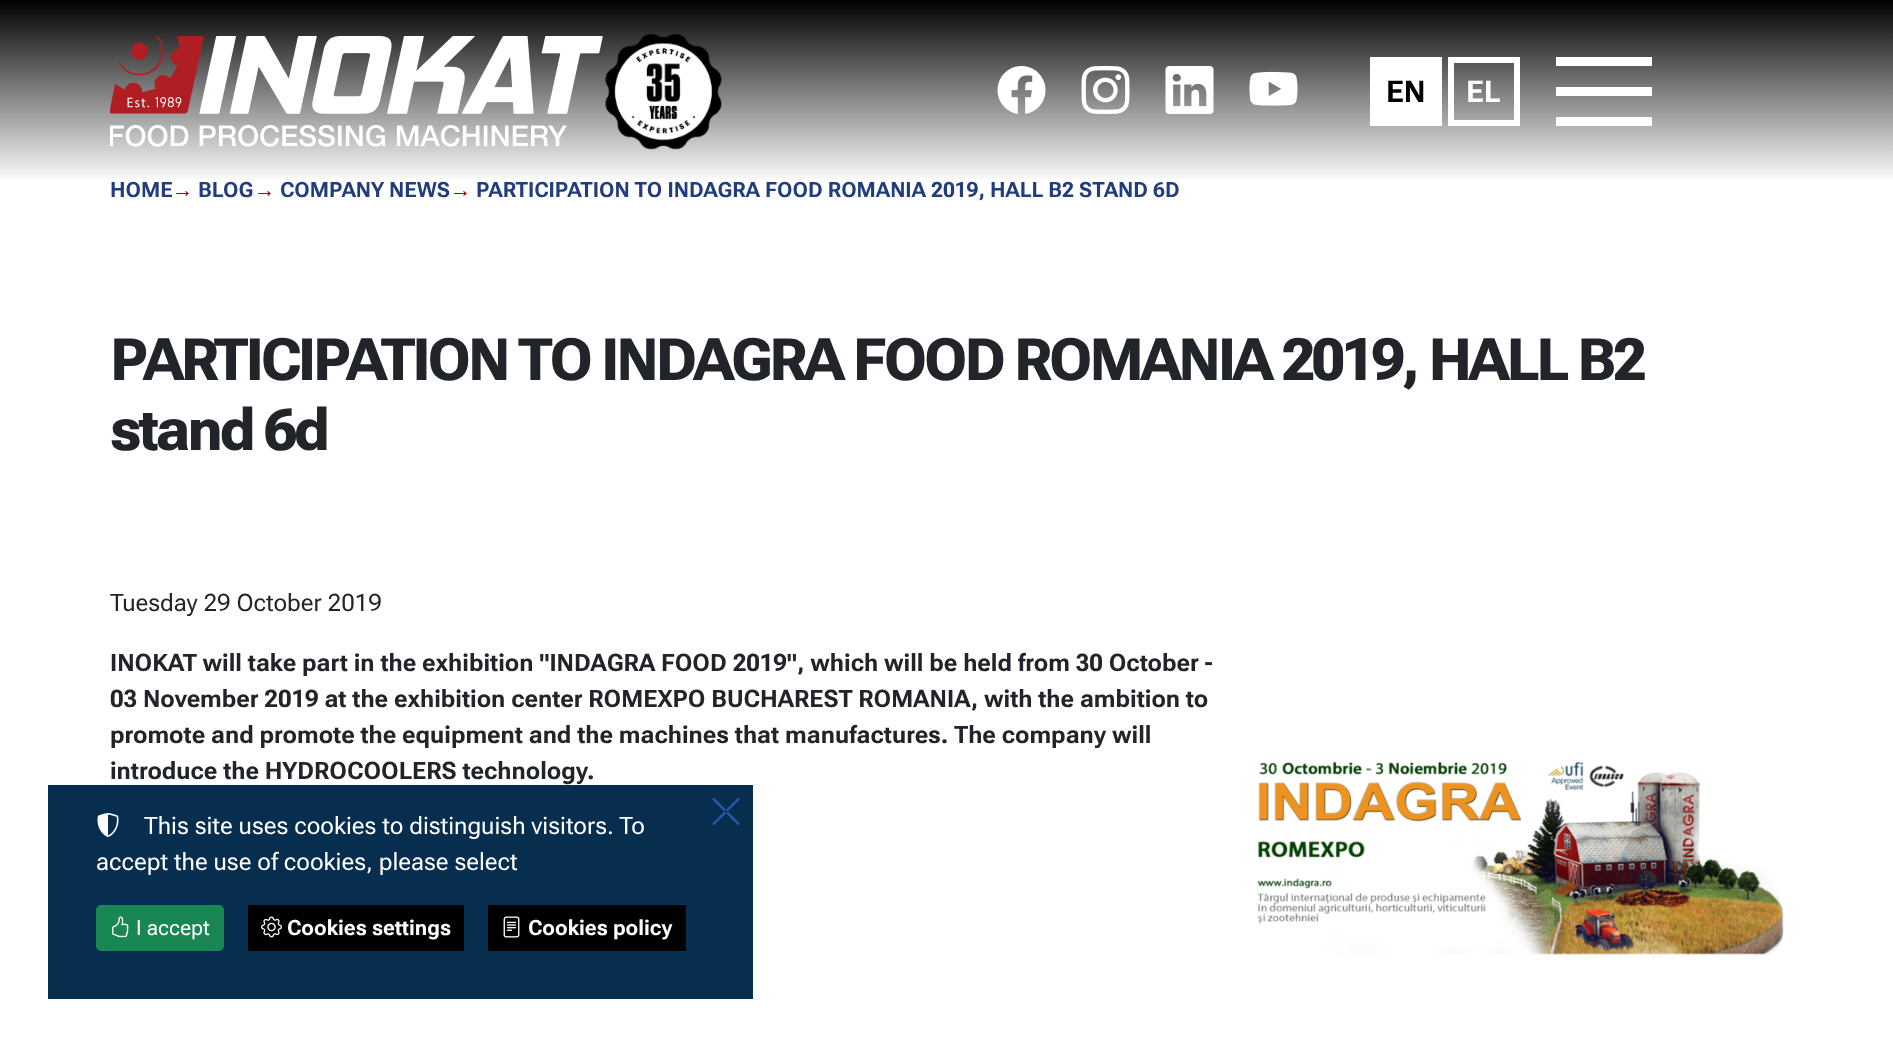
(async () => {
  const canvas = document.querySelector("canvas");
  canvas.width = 1893;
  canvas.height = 1046;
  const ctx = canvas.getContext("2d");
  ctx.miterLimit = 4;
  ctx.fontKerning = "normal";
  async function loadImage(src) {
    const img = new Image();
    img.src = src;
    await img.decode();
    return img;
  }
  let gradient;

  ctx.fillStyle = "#ffffff";
  ctx.fillRect(0, 0, 1893, 1046);
  gradient = ctx.createLinearGradient(947, 0, 947, 183);
  gradient.addColorStop(0, "#000000");
  gradient.addColorStop(1, "rgba(0, 0, 0, 0)");
  ctx.fillStyle = gradient;
  ctx.fillRect(0, 0, 1893, 179);
  ctx.drawImage(await loadImage("img/1.png"), 110, 36, 493, 111);
  ctx.drawImage(await loadImage("img/2.png"), 605, 34, 117, 116);
  ctx.drawImage(await loadImage("img/3.png"), 997, 66, 49, 48);
  ctx.drawImage(await loadImage("img/4.png"), 1081, 66, 49, 48);
  ctx.drawImage(await loadImage("img/5.png"), 1165, 66, 49, 48);
  ctx.drawImage(await loadImage("img/6.png"), 1249, 71, 49, 35);
  ctx.fillStyle = "#ffffff";
  ctx.fillRect(1370, 57, 72, 69);
  ctx.strokeStyle = "#ffffff";
  ctx.lineWidth = 6;
  ctx.strokeRect(1451, 60, 66, 63);
  for (const [x, y, w, h, color] of [
    [1556, 87, 96, 9, "#ffffff"],
    [1556, 57, 96, 9, "#ffffff"],
    [1556, 117, 96, 9, "#ffffff"],
  ]) {
    ctx.fillStyle = color;
    ctx.fillRect(x, y, w, h);
  }
  ctx.drawImage(await loadImage("img/7.png"), 1257, 761, 527, 194);
  ctx.fillStyle = "#072d4f";
  ctx.fillRect(48, 785, 705, 214);
  ctx.drawImage(await loadImage("img/8.png"), 97, 813, 22, 24);
  ctx.drawImage(await loadImage("img/9.png"), 712, 798, 28, 27);
  ctx.fillStyle = "#198754";
  ctx.beginPath();
  ctx.roundRect(97, 906, 126, 44, 4);
  ctx.fill();
  ctx.strokeStyle = "#198754";
  ctx.lineWidth = 2;
  ctx.stroke();
  ctx.drawImage(await loadImage("img/10.png"), 112, 916, 17, 22);
  ctx.fillStyle = "#000000";
  ctx.fillRect(248, 905, 216, 46);
  ctx.drawImage(await loadImage("img/11.png"), 261, 916, 21, 22);
  ctx.fillRect(488, 905, 198, 46);
  ctx.drawImage(await loadImage("img/12.png"), 503, 916, 17, 22);
  ctx.font = "italic bold 30px Roboto Flex";
  ctx.fillText("EN", 1386, 102);
  ctx.fillStyle = "#ffffff";
  ctx.fillText("EL", 1466, 102);
  ctx.font = "italic bold 21px Roboto Flex";
  ctx.fillStyle = "#223d7d";
  ctx.fillText("HOME", 110, 197);
  ctx.font = "bold 21px Liberation Sans";
  ctx.fillStyle = "#aa0000";
  ctx.fillText("→", 172, 197);
  ctx.font = "italic bold 21px Roboto Flex";
  ctx.fillStyle = "#223d7d";
  ctx.fillText("BLOG", 198, 197);
  ctx.font = "bold 21px Liberation Sans";
  ctx.fillStyle = "#aa0000";
  ctx.fillText("→", 254, 197);
  ctx.font = "italic bold 21px Roboto Flex";
  ctx.fillStyle = "#223d7d";
  ctx.fillText("COMPANY NEWS", 280, 197);
  ctx.font = "bold 21px Liberation Sans";
  ctx.fillStyle = "#aa0000";
  ctx.fillText("→", 450, 197);
  ctx.font = "italic bold 21px Roboto Flex";
  ctx.fillStyle = "#223d7d";
  ctx.fillText("PARTICIPATION TO INDAGRA FOOD ROMANIA 2019, HALL B2 STAND 6D", 476, 197);
  ctx.letterSpacing = "-3px";
  ctx.font = "italic 800 58.4px Roboto Flex";
  ctx.fillStyle = "#212529";
  ctx.fillText("PARTICIPATION TO INDAGRA FOOD ROMANIA 2019, HALL B2", 110, 380);
  ctx.fillText("stand 6d", 110, 450);
  ctx.letterSpacing = "0px";
  ctx.font = "italic 24px Roboto Flex";
  ctx.fillText("Tuesday 29 October 2019", 110, 611);
  ctx.font = "italic bold 24px Roboto Flex";
  for (const [text, x, y] of [
    ["INOKAT will take part in the exhibition \"INDAGRA FOOD 2019\", which will be held from 30 Οctober -", 110, 671],
    ["03 November 2019 at the exhibition center ROMEXPO BUCHAREST ROMANIA, with the ambition to", 110, 707],
    ["promote and promote the equipment and the machines that manufactures. The company will", 110, 743],
    ["introduce the HYDROCOOLERS technology.", 110, 779],
  ]) {
    ctx.fillText(text, x, y);
  }
  ctx.font = "italic 24px Roboto Flex";
  ctx.fillStyle = "#ffffff";
  ctx.fillText("This site uses cookies to distinguish visitors. To", 144, 834);
  ctx.fillText("accept the use of cookies, please select", 96, 870);
  ctx.font = "italic 21px Roboto Flex";
  ctx.fillText("I accept", 136, 935);
  ctx.font = "italic bold 21px Roboto Flex";
  ctx.fillText("Cookies settings", 287, 935);
  ctx.fillText("Cookies policy", 528, 935);
})();
